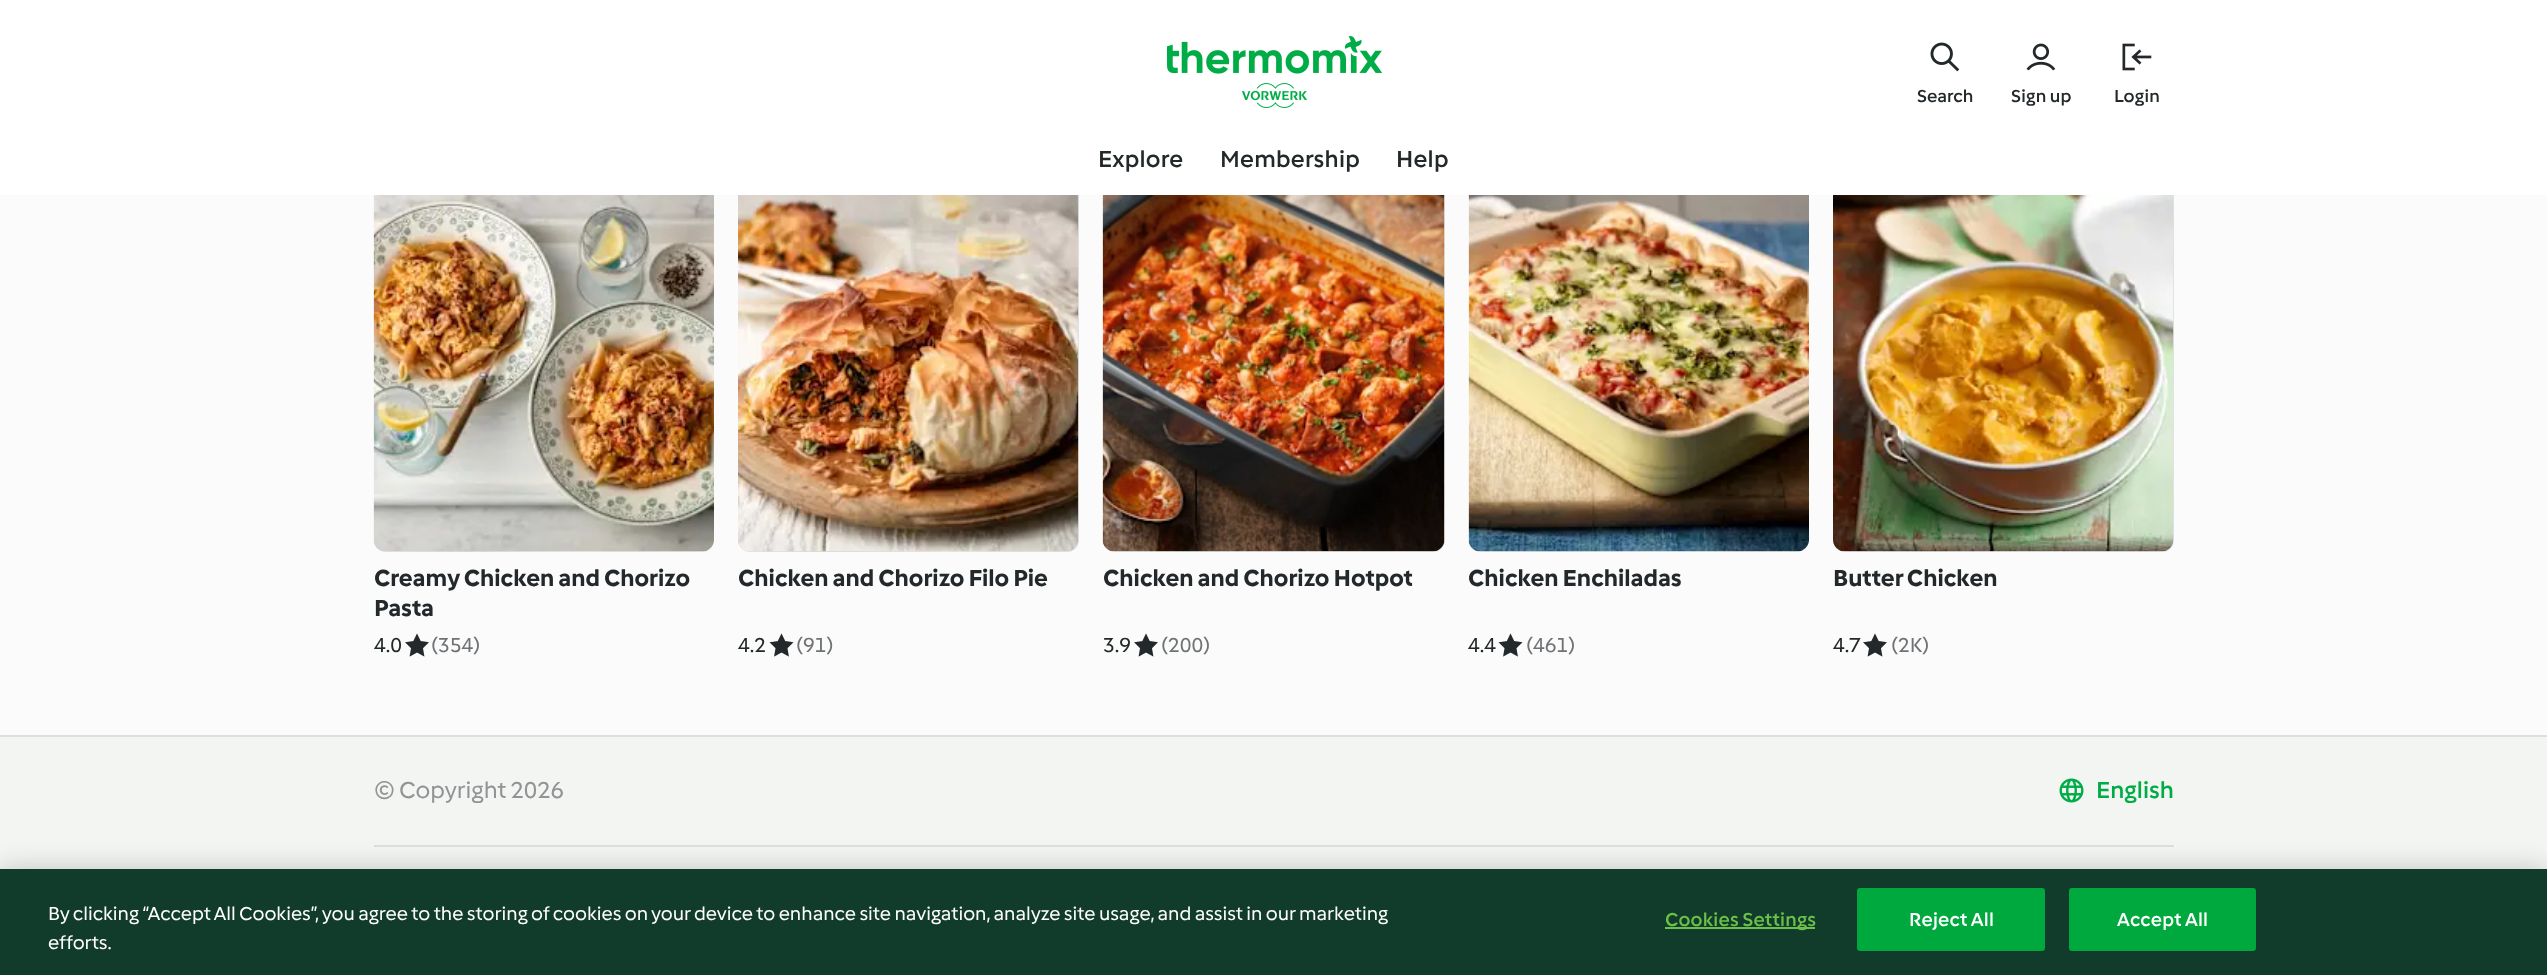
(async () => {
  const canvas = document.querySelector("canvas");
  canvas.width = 2547;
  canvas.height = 975;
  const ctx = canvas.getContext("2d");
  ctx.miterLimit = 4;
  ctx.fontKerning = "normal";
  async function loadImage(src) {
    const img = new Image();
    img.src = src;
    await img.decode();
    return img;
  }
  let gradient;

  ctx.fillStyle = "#fbfbfb";
  ctx.fillRect(0, 0, 2547, 975);
  gradient = ctx.createLinearGradient(351, 340, 736, 394);
  gradient.addColorStop(0.19, "#dfe2e0");
  gradient.addColorStop(0.35, "#d6dbd8");
  gradient.addColorStop(0.66, "#e4e7e5");
  gradient.addColorStop(0.79, "#dfe2e0");
  ctx.fillStyle = gradient;
  ctx.beginPath();
  ctx.roundRect(374, 182, 340, 370, 12);
  ctx.fill();
  gradient = ctx.createLinearGradient(716, 340, 1101, 394);
  gradient.addColorStop(0.19, "#dfe2e0");
  gradient.addColorStop(0.35, "#d6dbd8");
  gradient.addColorStop(0.66, "#e4e7e5");
  gradient.addColorStop(0.79, "#dfe2e0");
  ctx.fillStyle = gradient;
  ctx.beginPath();
  ctx.roundRect(738, 182, 341, 370, 12);
  ctx.fill();
  gradient = ctx.createLinearGradient(1080, 340, 1467, 394);
  gradient.addColorStop(0.19, "#dfe2e0");
  gradient.addColorStop(0.35, "#d6dbd8");
  gradient.addColorStop(0.66, "#e4e7e5");
  gradient.addColorStop(0.79, "#dfe2e0");
  ctx.fillStyle = gradient;
  ctx.beginPath();
  ctx.roundRect(1103, 182, 342, 370, 12);
  ctx.fill();
  gradient = ctx.createLinearGradient(1446, 340, 1831, 394);
  gradient.addColorStop(0.19, "#dfe2e0");
  gradient.addColorStop(0.35, "#d6dbd8");
  gradient.addColorStop(0.66, "#e4e7e5");
  gradient.addColorStop(0.79, "#dfe2e0");
  ctx.fillStyle = gradient;
  ctx.beginPath();
  ctx.roundRect(1469, 182, 340, 370, 12);
  ctx.fill();
  gradient = ctx.createLinearGradient(1811, 340, 2196, 394);
  gradient.addColorStop(0.19, "#dfe2e0");
  gradient.addColorStop(0.35, "#d6dbd8");
  gradient.addColorStop(0.66, "#e4e7e5");
  gradient.addColorStop(0.79, "#dfe2e0");
  ctx.fillStyle = gradient;
  ctx.beginPath();
  ctx.roundRect(1833, 182, 341, 370, 12);
  ctx.fill();
  ctx.fillStyle = "#ffffff";
  ctx.fillRect(0, 0, 2547, 195);
  ctx.drawImage(await loadImage("img/1.png"), 1167, 36, 215, 72);
  ctx.drawImage(await loadImage("img/2.png"), 2026, 43, 30, 28);
  ctx.drawImage(await loadImage("img/3.png"), 2122, 43, 30, 28);
  ctx.drawImage(await loadImage("img/4.png"), 1930, 42, 30, 30);
  ctx.drawImage(await loadImage("img/5.png"), 373, 195, 341, 357);
  ctx.drawImage(await loadImage("img/6.png"), 405, 633, 24, 24);
  ctx.drawImage(await loadImage("img/7.png"), 738, 195, 341, 357);
  ctx.drawImage(await loadImage("img/8.png"), 769, 633, 25, 24);
  ctx.drawImage(await loadImage("img/9.png"), 1102, 195, 343, 357);
  ctx.drawImage(await loadImage("img/6.png"), 1134, 633, 24, 24);
  ctx.drawImage(await loadImage("img/10.png"), 1468, 195, 341, 357);
  ctx.drawImage(await loadImage("img/8.png"), 1498, 633, 25, 24);
  ctx.drawImage(await loadImage("img/11.png"), 1833, 195, 341, 357);
  ctx.drawImage(await loadImage("img/6.png"), 1863, 633, 24, 24);
  ctx.fillStyle = "#f3f5f3";
  ctx.fillRect(0, 737, 2547, 132);
  ctx.fillStyle = "#dcdfdc";
  ctx.fillRect(0, 735, 2547, 2);
  ctx.drawImage(await loadImage("img/12.png"), 2059, 778, 25, 25);
  ctx.fillRect(374, 845, 1800, 2);
  ctx.fillStyle = "rgba(0, 0, 0, 0.2)";
  ctx.filter = "blur(13.5px)";
  ctx.beginPath();
  ctx.rect(0, 869, 2547, 106);
  ctx.fill();
  ctx.filter = "none";
  ctx.fillStyle = "#113c2b";
  ctx.fillRect(0, 869, 2547, 106);
  ctx.fillStyle = "#6cc04a";
  ctx.fillRect(1665, 927, 150, 2);
  ctx.fillStyle = "#00a93d";
  ctx.beginPath();
  ctx.roundRect(1858, 889, 186, 61, 2);
  ctx.fill();
  ctx.strokeStyle = "#00a93d";
  ctx.lineWidth = 2;
  ctx.stroke();
  ctx.beginPath();
  ctx.roundRect(2070, 889, 185, 61, 2);
  ctx.fill();
  ctx.stroke();
  ctx.letterSpacing = "0.25px";
  ctx.font = "500 18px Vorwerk";
  ctx.fillStyle = "#23282a";
  ctx.fillText("Sign up", 2011, 102);
  ctx.fillText("Login", 2114, 102);
  ctx.font = "500 24px Vorwerk";
  for (const [text, x, y] of [
    ["Explore", 1098, 167],
    ["Membership", 1220, 167],
    ["Help", 1396, 167],
  ]) {
    ctx.fillText(text, x, y);
  }
  ctx.letterSpacing = "0px";
  ctx.font = "500 18px Vorwerk";
  ctx.fillText("Search", 1917, 102);
  ctx.font = "bold 24px Vorwerk";
  ctx.fillText("Creamy Chicken and Chorizo", 374, 586);
  ctx.fillText("Pasta", 374, 616);
  ctx.font = "21px Vorwerk";
  ctx.fillText("4.0", 374, 652);
  ctx.fillStyle = "#707375";
  ctx.fillText("(354)", 431, 652);
  ctx.font = "bold 24px Vorwerk";
  ctx.fillStyle = "#23282a";
  ctx.fillText("Chicken and Chorizo Filo Pie", 738, 586);
  ctx.font = "21px Vorwerk";
  ctx.fillText("4.2", 738, 652);
  ctx.fillStyle = "#707375";
  ctx.fillText("(91)", 796, 652);
  ctx.font = "bold 24px Vorwerk";
  ctx.fillStyle = "#23282a";
  ctx.fillText("Chicken and Chorizo Hotpot", 1103, 586);
  ctx.font = "21px Vorwerk";
  ctx.fillText("3.9", 1103, 652);
  ctx.fillStyle = "#707375";
  ctx.fillText("(200)", 1161, 652);
  ctx.font = "bold 24px Vorwerk";
  ctx.fillStyle = "#23282a";
  ctx.fillText("Chicken Enchiladas", 1468, 586);
  ctx.font = "21px Vorwerk";
  ctx.fillText("4.4", 1468, 652);
  ctx.fillStyle = "#707375";
  ctx.fillText("(461)", 1526, 652);
  ctx.font = "bold 24px Vorwerk";
  ctx.fillStyle = "#23282a";
  ctx.fillText("Butter Chicken", 1833, 586);
  ctx.font = "21px Vorwerk";
  ctx.fillText("4.7", 1833, 652);
  ctx.fillStyle = "#707375";
  ctx.fillText("(2K)", 1891, 652);
  ctx.font = "24px Vorwerk";
  ctx.fillStyle = "#919394";
  ctx.fillText("© Copyright 2026", 374, 798);
  ctx.font = "500 24px Vorwerk";
  ctx.fillStyle = "#00ac46";
  ctx.fillText("English", 2096, 798);
  ctx.font = "19.5px Vorwerk";
  ctx.fillStyle = "#ffffff";
  ctx.fillText("By clicking “Accept All Cookies”, you agree to the storing of cookies on your device to enhance site navigation, analyze site usage, and assist in our marketing", 48, 920);
  ctx.fillText("efforts.", 48, 949);
  ctx.letterSpacing = "0.25px";
  ctx.font = "500 19.5px Vorwerk";
  ctx.fillStyle = "#6cc04a";
  ctx.fillText("Cookies Settings", 1665, 926);
  ctx.fillStyle = "#ffffff";
  ctx.fillText("Reject All", 1909, 926);
  ctx.fillText("Accept All", 2117, 926);
})();
